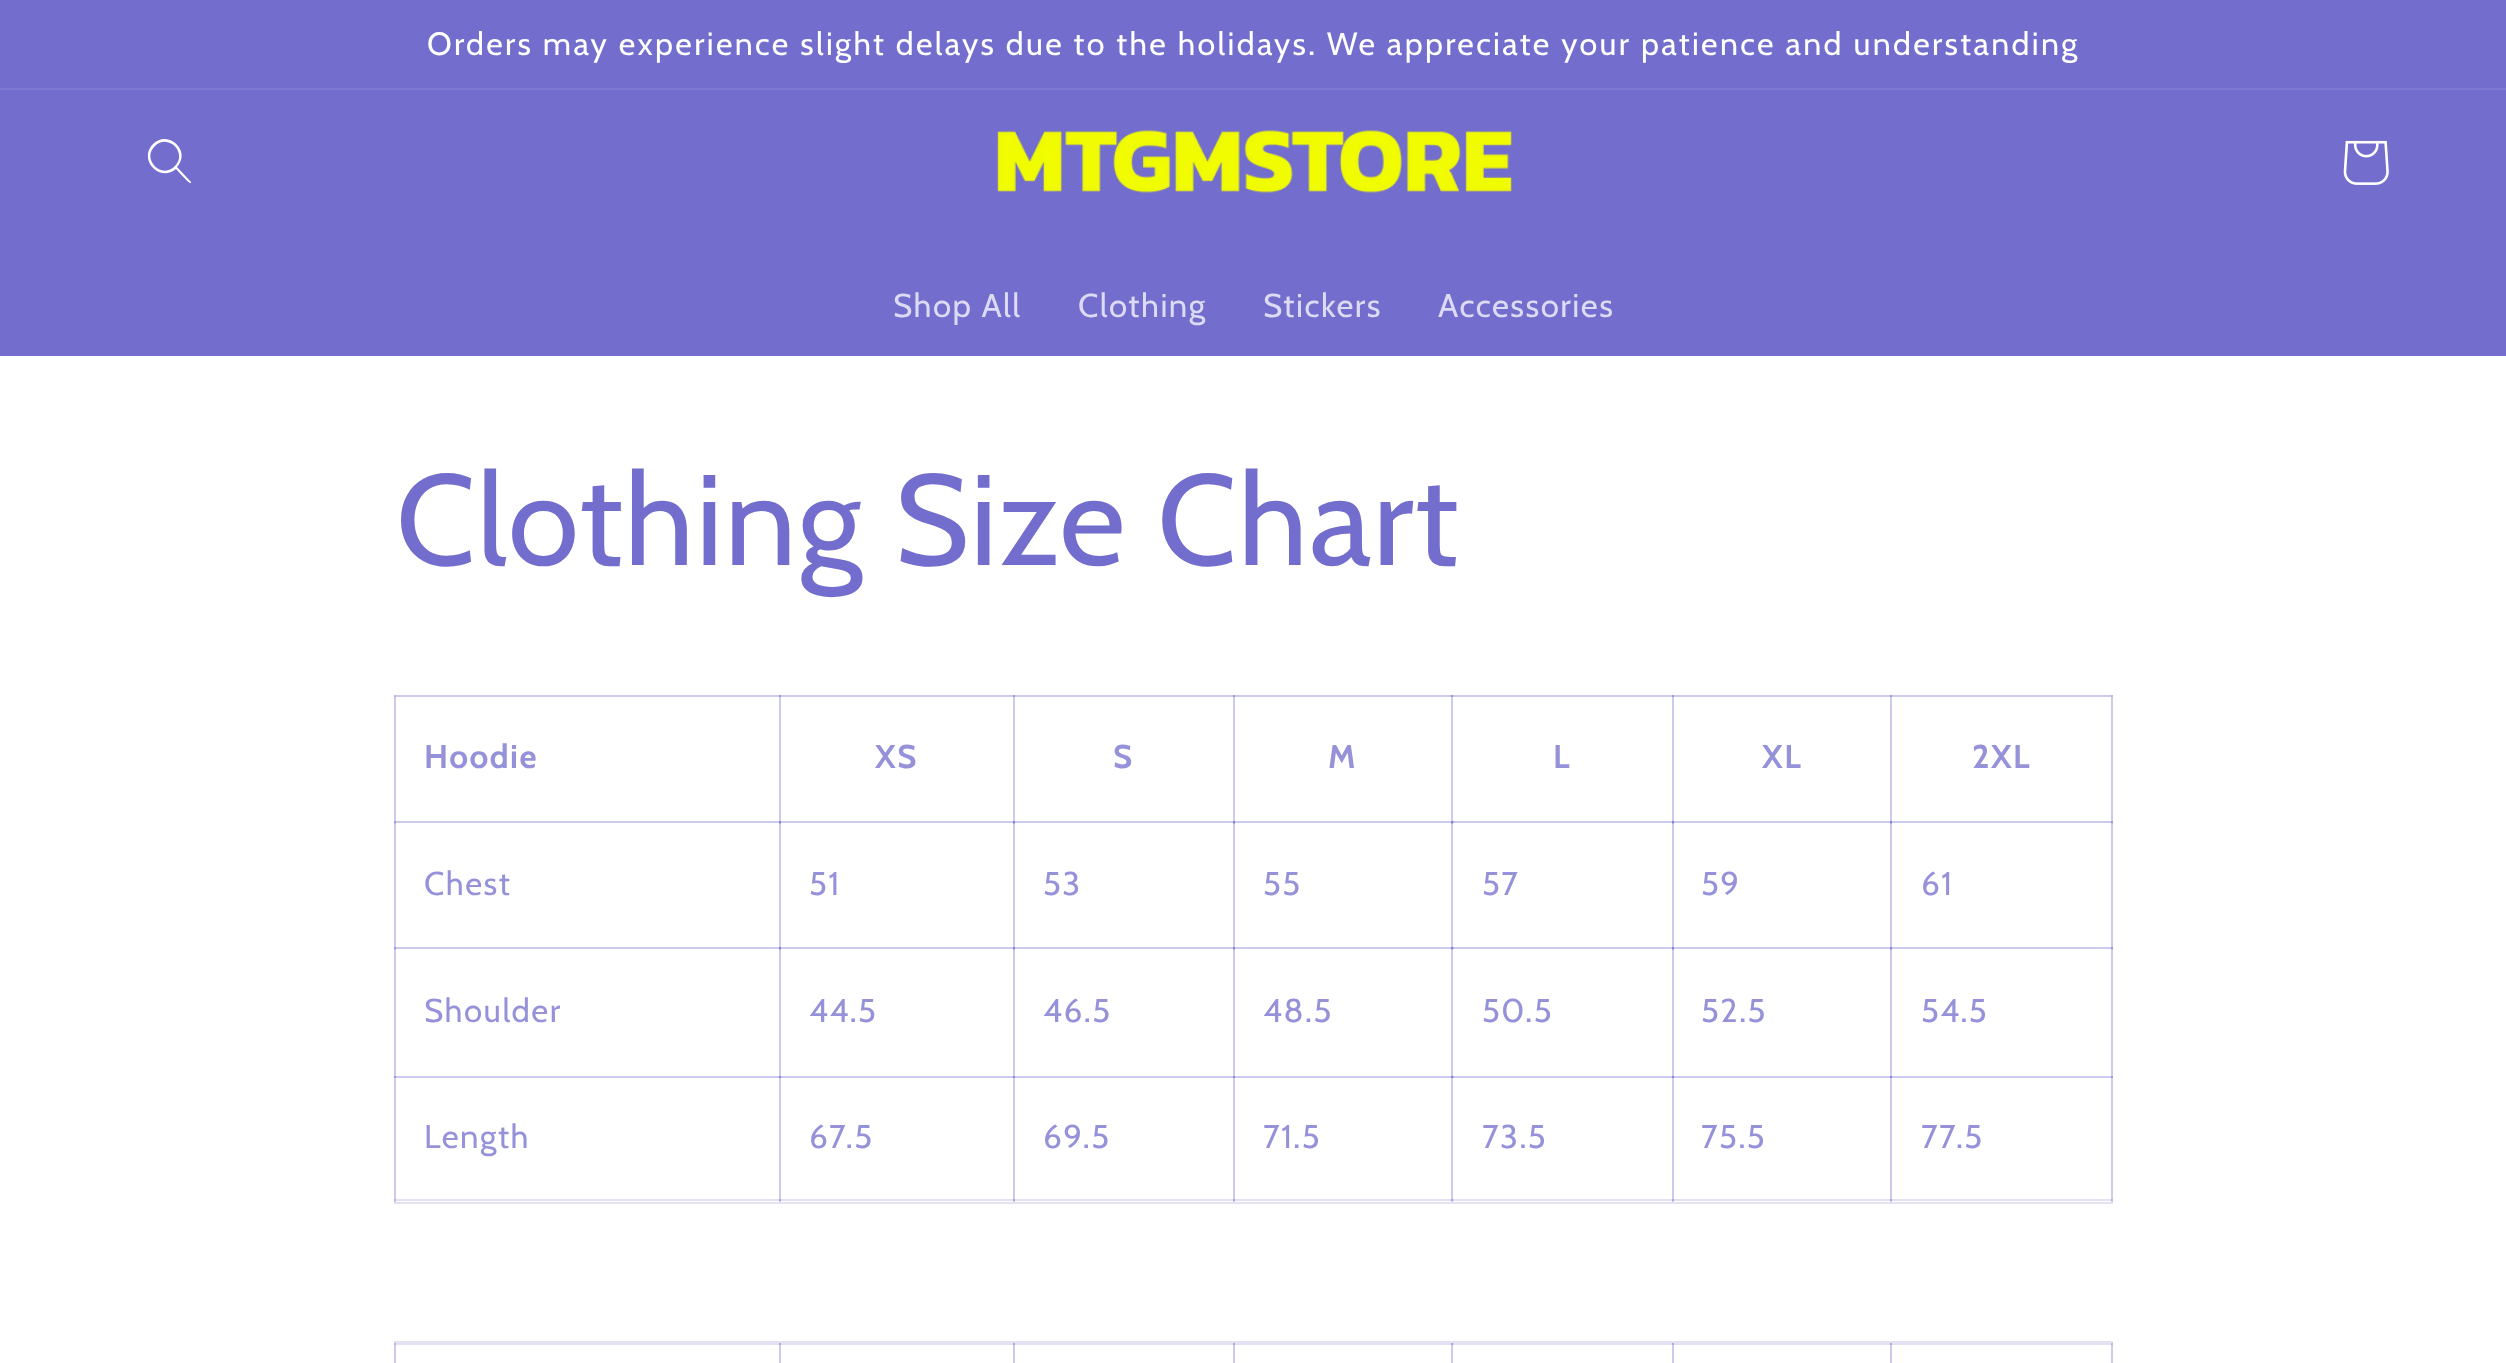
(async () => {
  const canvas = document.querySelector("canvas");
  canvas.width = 2506;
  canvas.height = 1363;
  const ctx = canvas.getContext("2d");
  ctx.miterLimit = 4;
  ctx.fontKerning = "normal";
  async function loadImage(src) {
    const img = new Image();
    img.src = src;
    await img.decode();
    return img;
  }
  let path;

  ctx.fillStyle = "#ffffff";
  ctx.fillRect(0, 0, 2506, 1363);
  for (const [x, y, w, h, color] of [
    [0, 0, 2506, 88, "#736dce"],
    [0, 88, 2506, 2, "#7e79d2"],
    [0, 90, 2506, 266, "#736dce"],
  ]) {
    ctx.fillStyle = color;
    ctx.fillRect(x, y, w, h);
  }
  ctx.fillStyle = "#ffffff";
  path = new Path2D("M175 166C162 180 141 159 155 146C168 133 188 153 175 166ZM176 169C159 183 138 159 153 144C168 129 192 151 177 167L191 182V183C189 184 178 171 176 169Z");
  ctx.fill(path, "evenodd");
  ctx.drawImage(await loadImage("img/1.png"), 997, 130, 515, 63);
  ctx.drawImage(await loadImage("img/2.png"), 2343, 140, 46, 45);
  ctx.strokeStyle = "#e3e2f5";
  ctx.lineWidth = 2;
  ctx.strokeRect(395, 696, 1717, 507);
  for (const [x, y, w, h, color] of [
    [1890, 695, 223, 2, "#cdcbed"],
    [1890, 821, 223, 2, "rgba(115, 109, 206, 0.2)"],
    [1890, 947, 223, 2, "rgba(115, 109, 206, 0.2)"],
    [1890, 1076, 223, 2, "rgba(115, 109, 206, 0.2)"],
    [2111, 1076, 2, 126, "rgba(115, 109, 206, 0.2)"],
    [2111, 947, 2, 131, "rgba(115, 109, 206, 0.2)"],
    [2111, 821, 2, 129, "rgba(115, 109, 206, 0.2)"],
    [2111, 695, 2, 129, "rgba(115, 109, 206, 0.2)"],
    [1890, 1199, 223, 2, "rgba(115, 109, 206, 0.2)"],
    [1890, 1076, 2, 126, "rgba(115, 109, 206, 0.2)"],
    [1672, 1076, 220, 2, "rgba(115, 109, 206, 0.2)"],
    [1890, 1076, 2, 126, "rgba(115, 109, 206, 0.2)"],
    [1890, 1076, 223, 2, "rgba(115, 109, 206, 0.2)"],
    [1890, 947, 2, 131, "rgba(115, 109, 206, 0.2)"],
    [1672, 947, 220, 2, "rgba(115, 109, 206, 0.2)"],
    [1890, 947, 2, 131, "rgba(115, 109, 206, 0.2)"],
    [1890, 947, 223, 2, "rgba(115, 109, 206, 0.2)"],
    [1890, 821, 2, 129, "rgba(115, 109, 206, 0.2)"],
    [1672, 821, 220, 2, "rgba(115, 109, 206, 0.2)"],
    [1890, 821, 2, 129, "rgba(115, 109, 206, 0.2)"],
    [1890, 821, 223, 2, "rgba(115, 109, 206, 0.2)"],
    [1890, 695, 2, 129, "rgba(115, 109, 206, 0.2)"],
    [1672, 695, 220, 2, "rgba(115, 109, 206, 0.2)"],
    [1890, 695, 2, 129, "rgba(115, 109, 206, 0.2)"],
    [1672, 1199, 220, 2, "rgba(115, 109, 206, 0.2)"],
    [1672, 1076, 2, 126, "rgba(115, 109, 206, 0.2)"],
    [1451, 1076, 223, 2, "rgba(115, 109, 206, 0.2)"],
    [1672, 1076, 2, 126, "rgba(115, 109, 206, 0.2)"],
    [1672, 1076, 220, 2, "rgba(115, 109, 206, 0.2)"],
    [1672, 947, 2, 131, "rgba(115, 109, 206, 0.2)"],
    [1451, 947, 223, 2, "rgba(115, 109, 206, 0.2)"],
    [1672, 947, 2, 131, "rgba(115, 109, 206, 0.2)"],
    [1672, 947, 220, 2, "rgba(115, 109, 206, 0.2)"],
    [1672, 821, 2, 129, "rgba(115, 109, 206, 0.2)"],
    [1451, 821, 223, 2, "rgba(115, 109, 206, 0.2)"],
    [1672, 821, 2, 129, "rgba(115, 109, 206, 0.2)"],
    [1672, 821, 220, 2, "rgba(115, 109, 206, 0.2)"],
    [1672, 695, 2, 129, "rgba(115, 109, 206, 0.2)"],
    [1451, 695, 223, 2, "rgba(115, 109, 206, 0.2)"],
    [1672, 695, 2, 129, "rgba(115, 109, 206, 0.2)"],
    [1451, 1199, 223, 2, "rgba(115, 109, 206, 0.2)"],
    [1451, 1076, 2, 126, "rgba(115, 109, 206, 0.2)"],
    [1233, 1076, 221, 2, "rgba(115, 109, 206, 0.2)"],
    [1451, 1076, 2, 126, "rgba(115, 109, 206, 0.2)"],
    [1451, 1076, 223, 2, "rgba(115, 109, 206, 0.2)"],
    [1451, 947, 2, 131, "rgba(115, 109, 206, 0.2)"],
    [1233, 947, 221, 2, "rgba(115, 109, 206, 0.2)"],
    [1451, 947, 2, 131, "rgba(115, 109, 206, 0.2)"],
    [1451, 947, 223, 2, "rgba(115, 109, 206, 0.2)"],
    [1451, 821, 2, 129, "rgba(115, 109, 206, 0.2)"],
    [1233, 821, 221, 2, "rgba(115, 109, 206, 0.2)"],
    [1451, 821, 2, 129, "rgba(115, 109, 206, 0.2)"],
    [1451, 821, 223, 2, "rgba(115, 109, 206, 0.2)"],
    [1451, 695, 2, 129, "rgba(115, 109, 206, 0.2)"],
    [1233, 695, 221, 2, "rgba(115, 109, 206, 0.2)"],
    [1451, 695, 2, 129, "rgba(115, 109, 206, 0.2)"],
    [1233, 1199, 221, 2, "rgba(115, 109, 206, 0.2)"],
    [1233, 1076, 2, 126, "rgba(115, 109, 206, 0.2)"],
    [1013, 1076, 222, 2, "rgba(115, 109, 206, 0.2)"],
    [1233, 1076, 2, 126, "rgba(115, 109, 206, 0.2)"],
    [1233, 1076, 221, 2, "rgba(115, 109, 206, 0.2)"],
    [1233, 947, 2, 131, "rgba(115, 109, 206, 0.2)"],
    [1013, 947, 222, 2, "rgba(115, 109, 206, 0.2)"],
    [1233, 947, 2, 131, "rgba(115, 109, 206, 0.2)"],
    [1233, 947, 221, 2, "rgba(115, 109, 206, 0.2)"],
    [1233, 821, 2, 129, "rgba(115, 109, 206, 0.2)"],
    [1013, 821, 222, 2, "rgba(115, 109, 206, 0.2)"],
    [1233, 821, 2, 129, "rgba(115, 109, 206, 0.2)"],
    [1233, 821, 221, 2, "rgba(115, 109, 206, 0.2)"],
    [1233, 695, 2, 129, "rgba(115, 109, 206, 0.2)"],
    [1013, 695, 222, 2, "rgba(115, 109, 206, 0.2)"],
    [1233, 695, 2, 129, "rgba(115, 109, 206, 0.2)"],
    [1013, 1199, 222, 2, "rgba(115, 109, 206, 0.2)"],
    [1013, 1076, 2, 126, "rgba(115, 109, 206, 0.2)"],
    [779, 1076, 236, 2, "rgba(115, 109, 206, 0.2)"],
    [1013, 1076, 2, 126, "rgba(115, 109, 206, 0.2)"],
    [1013, 1076, 222, 2, "rgba(115, 109, 206, 0.2)"],
    [1013, 947, 2, 131, "rgba(115, 109, 206, 0.2)"],
    [779, 947, 236, 2, "rgba(115, 109, 206, 0.2)"],
    [1013, 947, 2, 131, "rgba(115, 109, 206, 0.2)"],
    [1013, 947, 222, 2, "rgba(115, 109, 206, 0.2)"],
    [1013, 821, 2, 129, "rgba(115, 109, 206, 0.2)"],
    [779, 821, 236, 2, "rgba(115, 109, 206, 0.2)"],
    [1013, 821, 2, 129, "rgba(115, 109, 206, 0.2)"],
    [1013, 821, 222, 2, "rgba(115, 109, 206, 0.2)"],
    [1013, 695, 2, 129, "rgba(115, 109, 206, 0.2)"],
    [779, 695, 236, 2, "rgba(115, 109, 206, 0.2)"],
    [1013, 695, 2, 129, "rgba(115, 109, 206, 0.2)"],
    [779, 1199, 236, 2, "rgba(115, 109, 206, 0.2)"],
    [779, 1076, 2, 126, "rgba(115, 109, 206, 0.2)"],
    [394, 1076, 387, 2, "rgba(115, 109, 206, 0.2)"],
    [779, 1076, 2, 126, "rgba(115, 109, 206, 0.2)"],
    [779, 1076, 236, 2, "rgba(115, 109, 206, 0.2)"],
    [779, 947, 2, 131, "rgba(115, 109, 206, 0.2)"],
    [394, 947, 387, 2, "rgba(115, 109, 206, 0.2)"],
    [779, 947, 2, 131, "rgba(115, 109, 206, 0.2)"],
    [779, 947, 236, 2, "rgba(115, 109, 206, 0.2)"],
    [779, 821, 2, 129, "rgba(115, 109, 206, 0.2)"],
    [394, 821, 387, 2, "rgba(115, 109, 206, 0.2)"],
    [779, 821, 2, 129, "rgba(115, 109, 206, 0.2)"],
    [779, 821, 236, 2, "rgba(115, 109, 206, 0.2)"],
    [779, 695, 2, 129, "rgba(115, 109, 206, 0.2)"],
    [394, 695, 387, 2, "rgba(115, 109, 206, 0.2)"],
    [779, 695, 2, 129, "rgba(115, 109, 206, 0.2)"],
    [394, 1199, 387, 2, "rgba(115, 109, 206, 0.2)"],
    [394, 1076, 2, 126, "rgba(115, 109, 206, 0.2)"],
    [394, 1076, 387, 2, "rgba(115, 109, 206, 0.2)"],
    [394, 947, 2, 131, "rgba(115, 109, 206, 0.2)"],
    [394, 947, 387, 2, "rgba(115, 109, 206, 0.2)"],
    [394, 821, 2, 129, "rgba(115, 109, 206, 0.2)"],
    [394, 821, 387, 2, "rgba(115, 109, 206, 0.2)"],
    [394, 695, 2, 129, "rgba(115, 109, 206, 0.2)"],
  ]) {
    ctx.fillStyle = color;
    ctx.fillRect(x, y, w, h);
  }
  ctx.strokeRect(395, 1342, 1717, 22);
  for (const [x, y, w, h, color] of [
    [1890, 1343, 223, 2, "rgba(115, 109, 206, 0.2)"],
    [1890, 1343, 2, 20, "rgba(115, 109, 206, 0.2)"],
    [1672, 1343, 220, 2, "rgba(115, 109, 206, 0.2)"],
    [1672, 1343, 2, 20, "rgba(115, 109, 206, 0.2)"],
    [1451, 1343, 223, 2, "rgba(115, 109, 206, 0.2)"],
    [1451, 1343, 2, 20, "rgba(115, 109, 206, 0.2)"],
    [1233, 1343, 221, 2, "rgba(115, 109, 206, 0.2)"],
    [1233, 1343, 2, 20, "rgba(115, 109, 206, 0.2)"],
    [1013, 1343, 222, 2, "rgba(115, 109, 206, 0.2)"],
    [1013, 1343, 2, 20, "rgba(115, 109, 206, 0.2)"],
    [779, 1343, 236, 2, "rgba(115, 109, 206, 0.2)"],
    [779, 1343, 2, 20, "rgba(115, 109, 206, 0.2)"],
    [394, 1343, 387, 2, "rgba(115, 109, 206, 0.2)"],
    [779, 1343, 2, 20, "rgba(115, 109, 206, 0.2)"],
    [394, 1343, 2, 20, "rgba(115, 109, 206, 0.2)"],
    [1013, 1343, 2, 20, "rgba(115, 109, 206, 0.2)"],
    [1233, 1343, 2, 20, "rgba(115, 109, 206, 0.2)"],
    [1451, 1343, 2, 20, "rgba(115, 109, 206, 0.2)"],
    [1672, 1343, 2, 20, "rgba(115, 109, 206, 0.2)"],
    [1890, 1343, 2, 20, "rgba(115, 109, 206, 0.2)"],
    [2111, 1343, 2, 20, "rgba(115, 109, 206, 0.2)"],
  ]) {
    ctx.fillStyle = color;
    ctx.fillRect(x, y, w, h);
  }
  ctx.letterSpacing = "2.36px";
  ctx.font = "32.18px Cabin";
  ctx.fillStyle = "#ffffff";
  ctx.fillText("Orders may experience slight delays due to the holidays. We appreciate your patience and understanding", 427, 55);
  ctx.letterSpacing = "1.5px";
  ctx.font = "33px Cabin";
  ctx.fillStyle = "#dcdbf3";
  for (const [text, x, y] of [
    ["Shop All", 893, 317],
    ["Clothing", 1078, 317],
    ["Stickers", 1263, 317],
    ["Accessories", 1438, 317],
  ]) {
    ctx.fillText(text, x, y);
  }
  ctx.font = "128.75px Cabin";
  ctx.fillStyle = "#736dce";
  ctx.fillText("Clothing Size Chart", 396, 565);
  ctx.font = "bold 33px Cabin";
  ctx.fillStyle = "#9692da";
  for (const [text, x, y] of [
    ["Hoodie", 424, 768],
    ["XS", 875, 768],
    ["S", 1113, 768],
    ["M", 1328, 768],
    ["L", 1553, 768],
    ["XL", 1762, 768],
    ["2XL", 1972, 768],
  ]) {
    ctx.fillText(text, x, y);
  }
  ctx.font = "33px Cabin";
  for (const [text, x, y] of [
    ["Chest", 424, 895],
    ["51", 809, 895],
    ["53", 1043, 895],
    ["55", 1263, 895],
    ["57", 1482, 895],
    ["59", 1701, 895],
    ["61", 1921, 895],
    ["Shoulder", 424, 1022],
    ["44.5", 809, 1022],
    ["46.5", 1043, 1022],
    ["48.5", 1263, 1022],
    ["50.5", 1482, 1022],
    ["52.5", 1701, 1022],
    ["54.5", 1921, 1022],
    ["Length", 424, 1148],
    ["67.5", 809, 1148],
    ["69.5", 1043, 1148],
    ["71.5", 1263, 1148],
    ["73.5", 1482, 1148],
    ["75.5", 1701, 1148],
    ["77.5", 1921, 1148],
  ]) {
    ctx.fillText(text, x, y);
  }
})();
